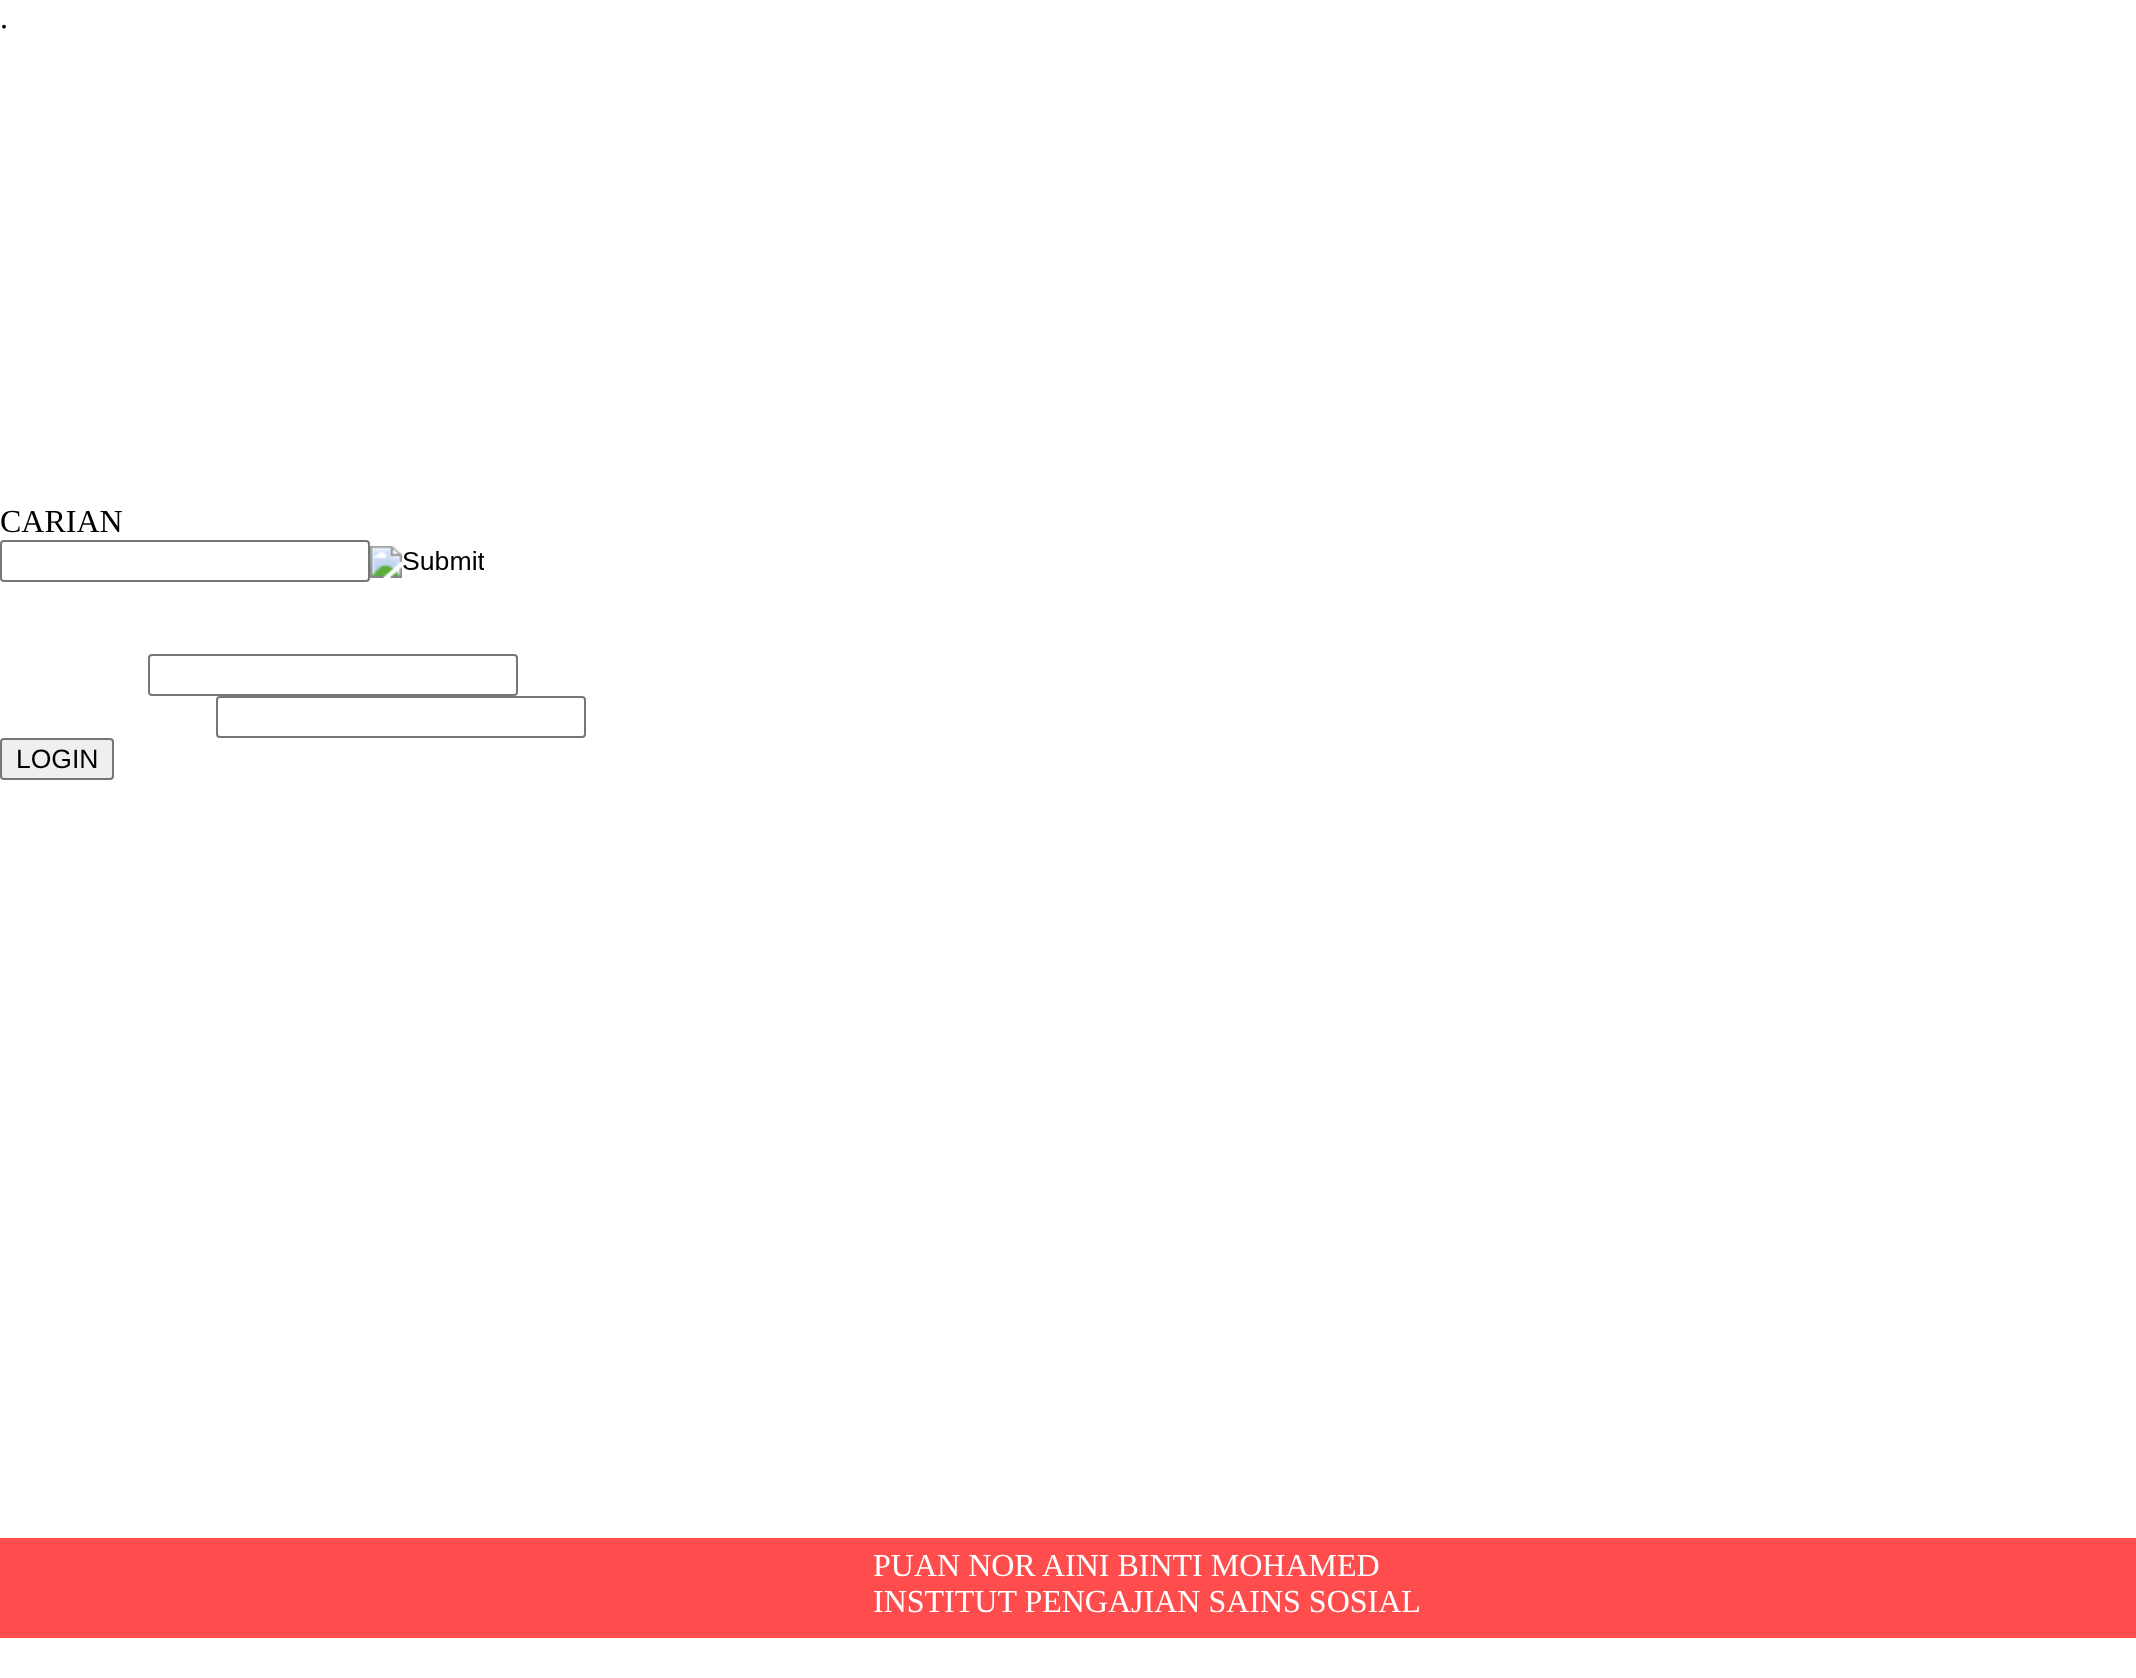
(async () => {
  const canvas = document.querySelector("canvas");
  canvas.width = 2136;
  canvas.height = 1678;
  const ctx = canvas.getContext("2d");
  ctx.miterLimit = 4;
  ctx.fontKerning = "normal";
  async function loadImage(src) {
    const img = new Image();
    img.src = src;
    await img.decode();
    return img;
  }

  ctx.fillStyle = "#ffffff";
  ctx.fillRect(0, 0, 2136, 1678);
  ctx.beginPath();
  ctx.roundRect(1, 541, 368, 40, 3);
  ctx.strokeStyle = "#767676";
  ctx.lineWidth = 2;
  ctx.stroke();
  ctx.drawImage(await loadImage("img/1.png"), 370, 546, 114, 32);
  ctx.beginPath();
  ctx.roundRect(149, 655, 368, 40, 3);
  ctx.stroke();
  ctx.beginPath();
  ctx.roundRect(217, 697, 368, 40, 3);
  ctx.stroke();
  ctx.fillStyle = "#efefef";
  ctx.beginPath();
  ctx.roundRect(1, 739, 112, 40, 3);
  ctx.fill();
  ctx.stroke();
  ctx.fillStyle = "#ff4d4d";
  ctx.fillRect(0, 1538, 2136, 100);
  ctx.font = "32px Liberation Serif";
  ctx.fillStyle = "#000000";
  ctx.fillText(".", 0, 28);
  ctx.fillText("CARIAN", 0, 532);
  ctx.font = "26.5px Liberation Sans";
  ctx.fillText("LOGIN", 16, 768);
  ctx.font = "32px Liberation Serif";
  ctx.fillStyle = "#ffffff";
  ctx.fillText("PUAN NOR AINI BINTI MOHAMED", 873, 1576);
  ctx.fillText("INSTITUT PENGAJIAN SAINS SOSIAL", 873, 1612);
})();
